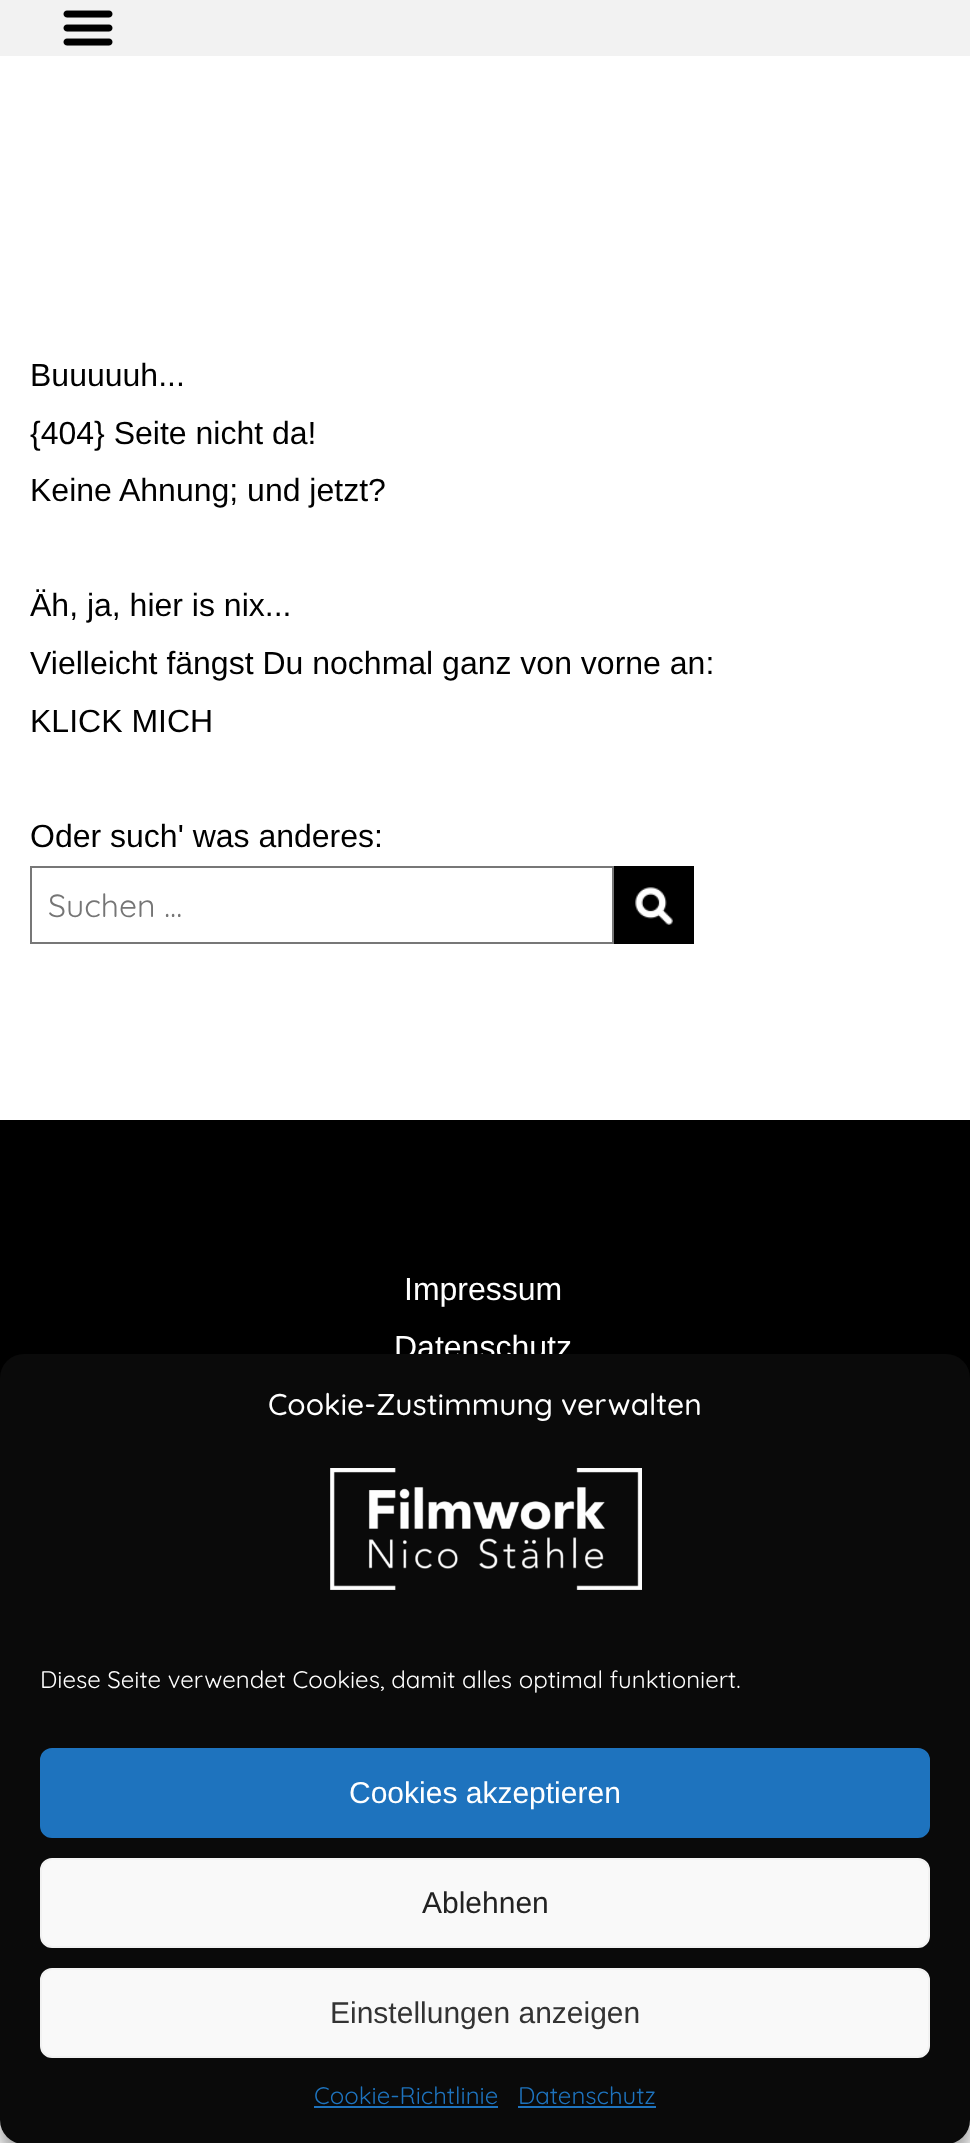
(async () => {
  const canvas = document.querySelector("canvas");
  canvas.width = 970;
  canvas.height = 2143;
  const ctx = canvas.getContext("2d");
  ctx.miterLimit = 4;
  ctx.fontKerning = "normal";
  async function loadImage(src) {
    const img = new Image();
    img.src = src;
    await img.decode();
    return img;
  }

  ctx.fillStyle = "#ffffff";
  ctx.fillRect(0, 0, 970, 2143);
  ctx.fillStyle = "#f2f2f2";
  ctx.fillRect(0, 0, 970, 56);
  ctx.drawImage(await loadImage("img/1.png"), 63, 10, 50, 36);
  ctx.strokeStyle = "#777777";
  ctx.lineWidth = 2;
  ctx.strokeRect(31, 867, 582, 76);
  ctx.fillStyle = "#000000";
  ctx.fillRect(614, 866, 80, 78);
  ctx.drawImage(await loadImage("img/2.png"), 635, 887, 38, 38);
  ctx.fillRect(0, 1120, 970, 258);
  ctx.fillStyle = "rgba(0, 0, 0, 0.23)";
  ctx.filter = "blur(6px)";
  ctx.beginPath();
  ctx.roundRect(0, 1366, 970, 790, 24);
  ctx.fill();
  ctx.filter = "none";
  ctx.fillStyle = "rgba(0, 0, 0, 0.19)";
  ctx.filter = "blur(20px)";
  ctx.beginPath();
  ctx.roundRect(0, 1374, 970, 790, 24);
  ctx.fill();
  ctx.filter = "none";
  ctx.font = "32px Liberation Sans";
  ctx.fillStyle = "#000000";
  for (const [text, x, y] of [
    ["Buuuuuh...", 30, 386],
    ["{404} Seite nicht da!", 30, 444],
    ["Keine Ahnung; und jetzt?", 30, 501],
    ["Äh, ja, hier is nix...", 30, 616],
    ["Vielleicht fängst Du nochmal ganz von vorne an:", 30, 674],
    ["KLICK MICH", 30, 732],
    ["Oder such' was anderes:", 30, 847],
  ]) {
    ctx.fillText(text, x, y);
  }
  ctx.font = "32px Quicksand";
  ctx.fillStyle = "#757575";
  ctx.fillText("Suchen …", 48, 917);
  ctx.font = "32px Liberation Sans";
  ctx.fillStyle = "#ffffff";
  ctx.fillText("Impressum", 404, 1300);
  ctx.fillText("Datenschutz", 394, 1358);
  ctx.fillStyle = "#0a0a0a";
  ctx.beginPath();
  ctx.roundRect(0, 1354, 970, 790, 24);
  ctx.fill();
  ctx.font = "500 30px Quicksand";
  ctx.fillStyle = "#ffffff";
  ctx.fillText("Cookie-Zustimmung verwalten", 268, 1415);
  ctx.drawImage(await loadImage("img/3.png"), 330, 1468, 312, 122);
  ctx.font = "24px Quicksand";
  ctx.fillText("Diese Seite verwendet Cookies, damit alles optimal funktioniert.", 40, 1688);
  ctx.fillStyle = "#1e73be";
  ctx.beginPath();
  ctx.roundRect(41, 1749, 888, 88, 11);
  ctx.fill();
  ctx.strokeStyle = "#1e73be";
  ctx.stroke();
  ctx.font = "30px Liberation Sans";
  ctx.fillStyle = "#ffffff";
  ctx.fillText("Cookies akzeptieren", 349, 1803);
  ctx.fillStyle = "#f9f9f9";
  ctx.beginPath();
  ctx.roundRect(41, 1859, 888, 88, 11);
  ctx.fill();
  ctx.strokeStyle = "#f2f2f2";
  ctx.stroke();
  ctx.fillStyle = "#222222";
  ctx.fillText("Ablehnen", 422, 1913);
  ctx.fillStyle = "#f9f9f9";
  ctx.beginPath();
  ctx.roundRect(41, 1969, 888, 88, 11);
  ctx.fill();
  ctx.stroke();
  ctx.fillStyle = "#333333";
  ctx.fillText("Einstellungen anzeigen", 330, 2023);
  ctx.font = "24px Quicksand";
  ctx.fillStyle = "#1e73be";
  ctx.fillText("Cookie-Richtlinie", 314, 2104);
  ctx.fillRect(314, 2106, 184, 2);
  ctx.fillText("Datenschutz", 518, 2104);
  ctx.fillRect(518, 2106, 138, 2);
})();
